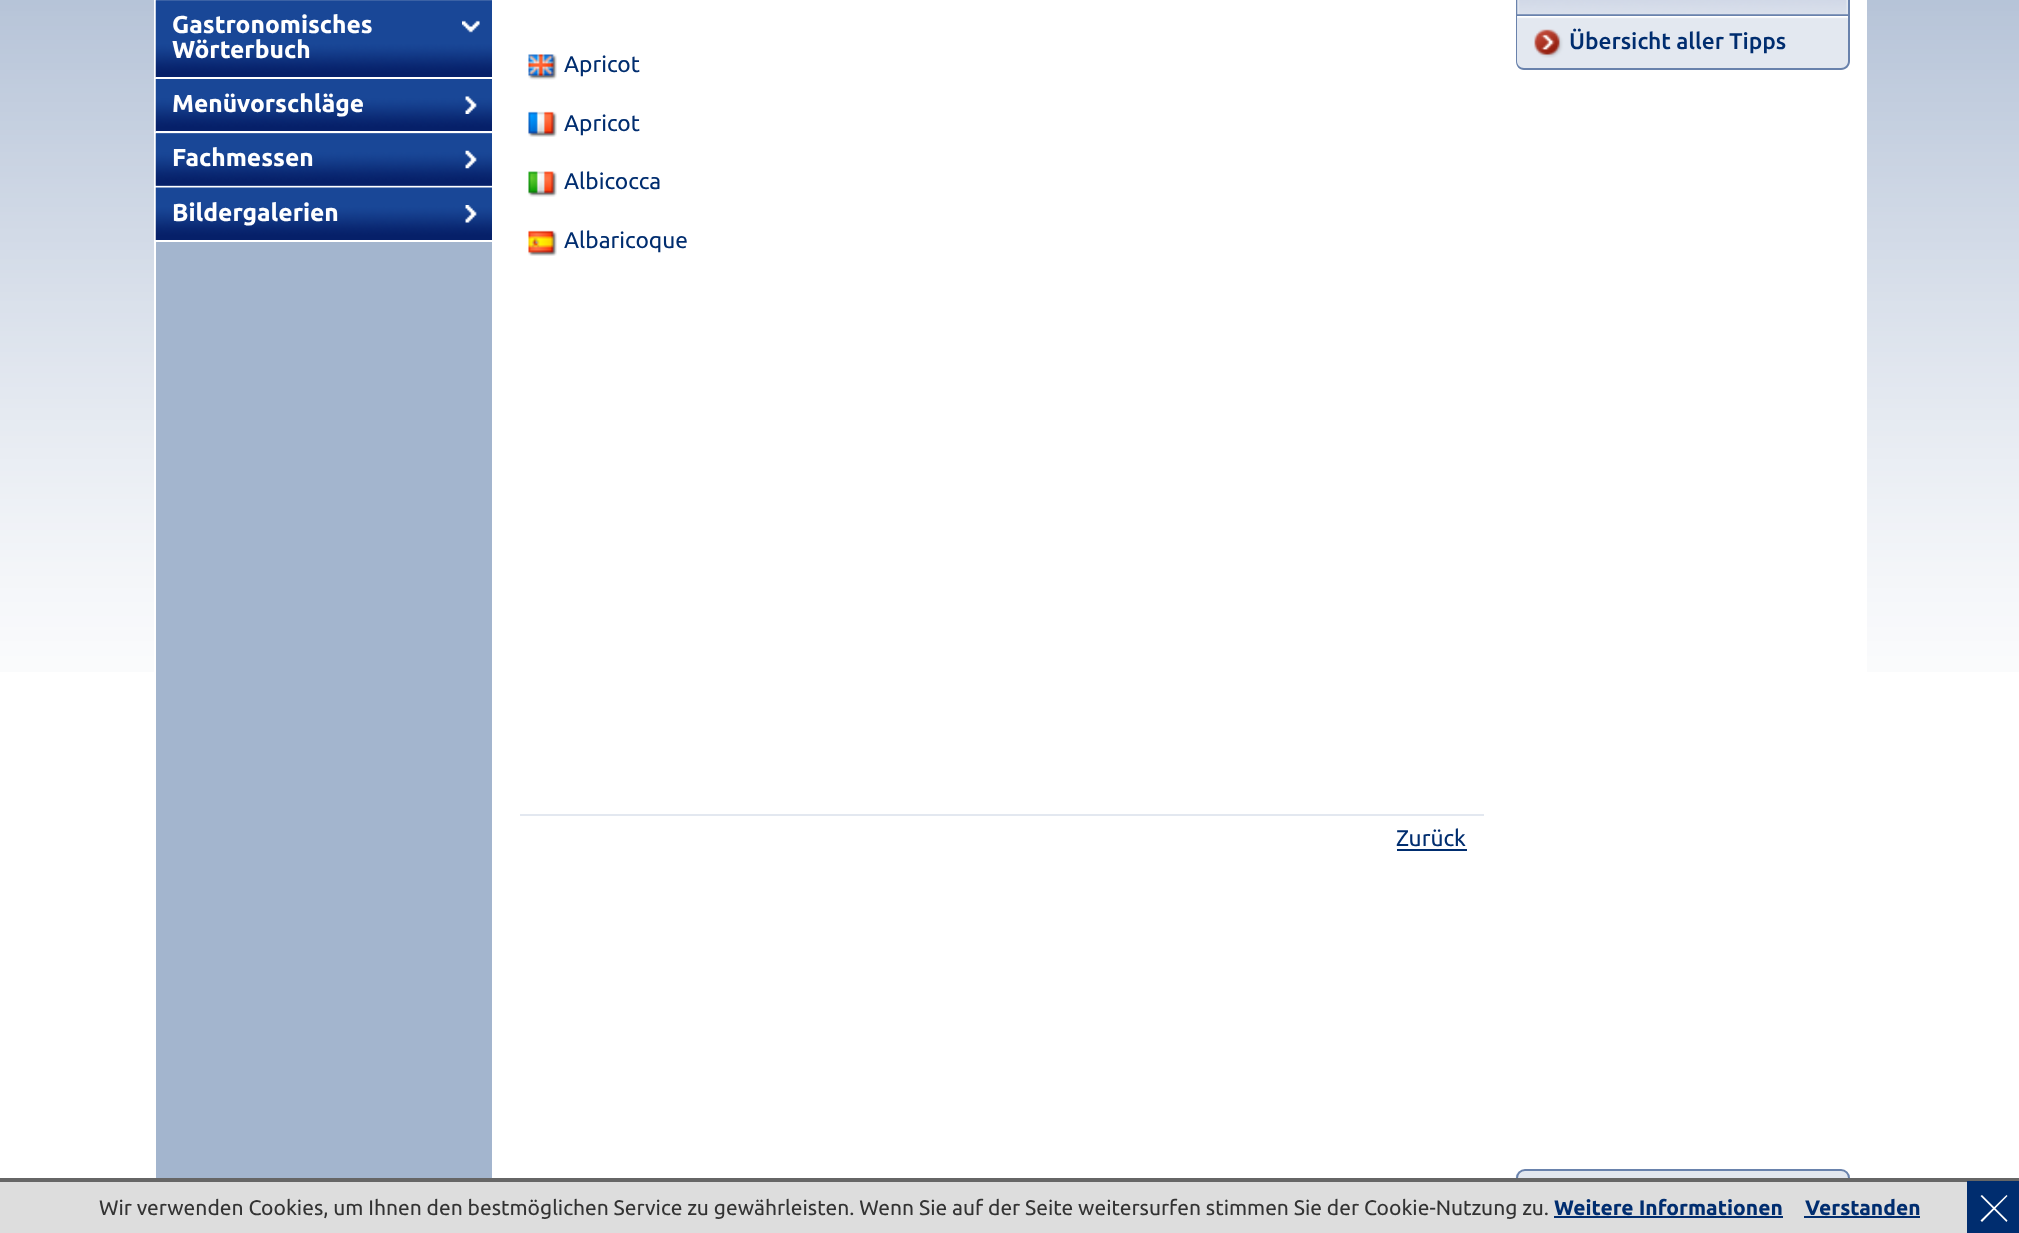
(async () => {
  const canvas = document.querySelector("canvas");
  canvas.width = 2019;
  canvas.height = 1233;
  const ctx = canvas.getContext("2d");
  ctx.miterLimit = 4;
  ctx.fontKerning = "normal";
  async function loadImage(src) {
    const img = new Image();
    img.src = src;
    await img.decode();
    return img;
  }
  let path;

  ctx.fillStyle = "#ffffff";
  ctx.fillRect(0, 0, 2019, 1233);
  ctx.drawImage(await loadImage("img/1.png"), 0, 0, 2019, 672);
  ctx.fillRect(492, 0, 1374, 672);
  ctx.fillStyle = "#a3b5ce";
  ctx.fillRect(156, 0, 336, 1178);
  ctx.fillStyle = "#ffffff";
  path = new Path2D("M163-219H1858C1863-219 1867-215 1867-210V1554H154V-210C154-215 158-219 163-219ZM163-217H1858C1862-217 1866-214 1866-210V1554H156V-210C156-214 159-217 163-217Z");
  ctx.fill(path, "evenodd");
  ctx.drawImage(await loadImage("img/2.png"), 155, 0, 337, 78);
  ctx.fillRect(156, 77, 338, 2);
  ctx.drawImage(await loadImage("img/3.png"), 462, 20, 18, 13);
  ctx.drawImage(await loadImage("img/4.png"), 155, 79, 337, 53);
  ctx.fillRect(156, 131, 338, 2);
  ctx.drawImage(await loadImage("img/5.png"), 465, 96, 12, 18);
  ctx.drawImage(await loadImage("img/6.png"), 155, 133, 337, 53);
  ctx.fillRect(156, 186, 338, 2);
  ctx.drawImage(await loadImage("img/7.png"), 465, 150, 12, 19);
  ctx.drawImage(await loadImage("img/8.png"), 155, 187, 337, 53);
  ctx.fillRect(156, 240, 338, 2);
  ctx.drawImage(await loadImage("img/9.png"), 465, 205, 12, 18);
  for (const [x, y, w, h, color] of [
    [1848, 0, 2, 16, "#6982ac"],
    [1516, 14, 334, 2, "#6982ac"],
    [1516, 0, 2, 16, "#6982ac"],
  ]) {
    ctx.fillStyle = color;
    ctx.fillRect(x, y, w, h);
  }
  ctx.drawImage(await loadImage("img/10.png"), 1517, 0, 331, 15);
  ctx.fillStyle = "#e3e8f0";
  ctx.beginPath();
  ctx.roundRect(1516, 16, 334, 54, [0, 0, 9, 9]);
  ctx.fill();
  ctx.drawImage(await loadImage("img/11.png"), 1517, 16, 331, 42);
  ctx.fillStyle = "#6982ac";
  path = new Path2D("M1516 16H1850V61C1850 66 1846 70 1841 70H1524C1519 70 1516 66 1516 61ZM1517 16H1848V61C1848 65 1845 68 1841 68H1524C1520 68 1517 65 1517 61Z");
  ctx.fill(path, "evenodd");
  ctx.drawImage(await loadImage("img/12.png"), 1515, 1171, 335, 7);
  ctx.beginPath();
  ctx.roundRect(1517, 1170, 332, 44, [8, 8, 0, 0]);
  ctx.strokeStyle = "#6982ac";
  ctx.lineWidth = 2;
  ctx.stroke();
  ctx.drawImage(await loadImage("img/13.png"), 528, 54, 29, 26);
  ctx.drawImage(await loadImage("img/14.png"), 528, 111, 29, 26);
  ctx.drawImage(await loadImage("img/15.png"), 528, 171, 29, 26);
  ctx.drawImage(await loadImage("img/16.png"), 528, 230, 29, 26);
  for (const [x, y, w, h, color] of [
    [520, 814, 964, 2, "#e3e8f0"],
    [1397, 849, 70, 2, "#002d6f"],
    [0, 1182, 1967, 51, "#dddddd"],
    [0, 1178, 2019, 4, "#666666"],
    [1554, 1216, 229, 2, "#002d6f"],
    [1804, 1216, 116, 2, "#002d6f"],
    [1967, 1181, 52, 52, "#002d6f"],
  ]) {
    ctx.fillStyle = color;
    ctx.fillRect(x, y, w, h);
  }
  ctx.fillStyle = "#ffffff";
  path = new Path2D("M1982 1195L2007.5 1220.5L2006.5 1222L1980.5 1196Z");
  ctx.fill(path);
  path = new Path2D("M1980.5 1220.5L2006.5 1195L2007.5 1196L1982 1222Z");
  ctx.fill(path);
  ctx.font = "bold 24.5px Ubuntu";
  for (const [text, x, y] of [
    ["Gastronomisches", 172, 33],
    ["Wörterbuch", 172, 58],
    ["Menüvorschläge", 172, 112],
    ["Fachmessen", 172, 166],
    ["Bildergalerien", 172, 221],
  ]) {
    ctx.fillText(text, x, y);
  }
  ctx.font = "500 22.75px Ubuntu";
  ctx.fillStyle = "#002d6f";
  ctx.fillText("Übersicht aller Tipps", 1569, 49);
  ctx.font = "22.75px Ubuntu";
  for (const [text, x, y] of [
    ["Apricot", 564, 72],
    ["Apricot", 564, 131],
    ["Albicocca", 564, 189],
    ["Albaricoque", 564, 248],
    ["Zurück", 1396, 846],
  ]) {
    ctx.fillText(text, x, y);
  }
  ctx.font = "21px Ubuntu";
  ctx.fillStyle = "#333333";
  ctx.fillText("Wir verwenden Cookies, um Ihnen den bestmöglichen Service zu gewährleisten. Wenn Sie auf der Seite weitersurfen stimmen Sie der Cookie-Nutzung zu.", 99, 1215);
  ctx.font = "bold 21px Ubuntu";
  ctx.fillStyle = "#002d6f";
  ctx.fillText("Weitere Informationen", 1554, 1215);
  ctx.fillText("Verstanden", 1805, 1215);
})();
